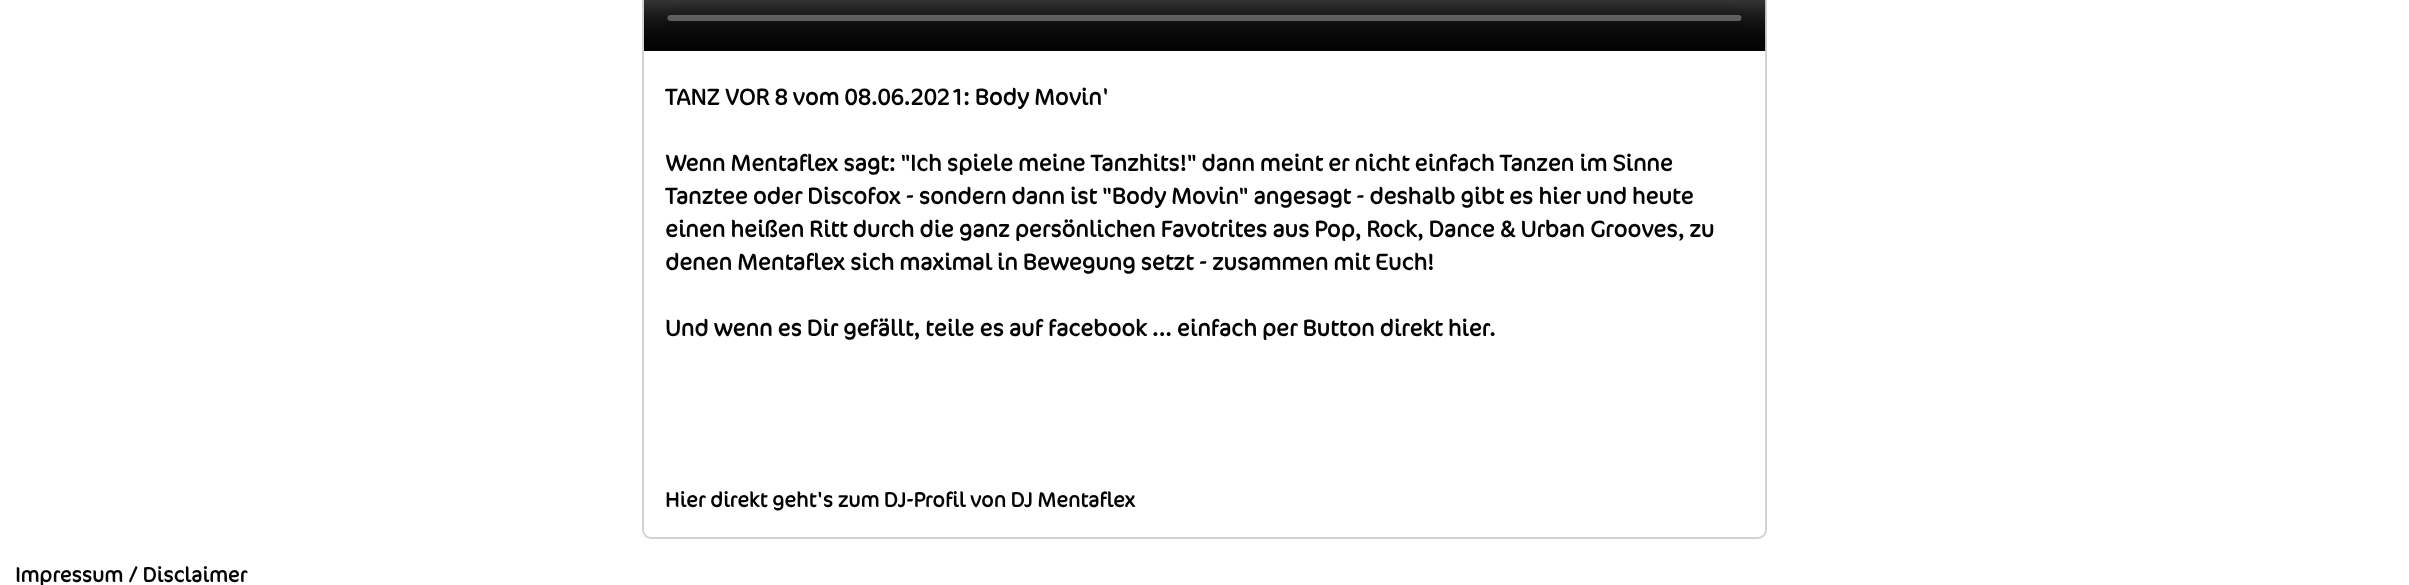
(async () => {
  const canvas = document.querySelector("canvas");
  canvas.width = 2409;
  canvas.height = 585;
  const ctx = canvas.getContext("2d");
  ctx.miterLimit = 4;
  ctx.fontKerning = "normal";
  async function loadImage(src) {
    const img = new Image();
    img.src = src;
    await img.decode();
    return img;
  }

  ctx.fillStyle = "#ffffff";
  ctx.fillRect(0, 0, 2409, 585);
  ctx.drawImage(await loadImage("img/1.png"), 0, 0, 2409, 585);
  ctx.beginPath();
  ctx.roundRect(643, -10, 1123, 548, 8);
  ctx.strokeStyle = "#d3d3d3";
  ctx.lineWidth = 2;
  ctx.stroke();
  ctx.drawImage(await loadImage("img/2.png"), 644, 0, 1122, 51);
  ctx.font = "bold 23.1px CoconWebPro";
  ctx.fillStyle = "#030303";
  for (const [text, x, y] of [
    ["TANZ VOR 8 vom 08.06.2021: Body Movin'", 665, 105],
    ["Wenn Mentaflex sagt: \"Ich spiele meine Tanzhits!\" dann meint er nicht einfach Tanzen im Sinne", 665, 171],
    ["Tanztee oder Discofox - sondern dann ist \"Body Movin\" angesagt - deshalb gibt es hier und heute", 665, 204],
    ["einen heißen Ritt durch die ganz persönlichen Favotrites aus Pop, Rock, Dance & Urban Grooves, zu", 665, 237],
    ["denen Mentaflex sich maximal in Bewegung setzt - zusammen mit Euch!", 665, 270],
    ["Und wenn es Dir gefällt, teile es auf facebook ... einfach per Button direkt hier.", 665, 336],
  ]) {
    ctx.fillText(text, x, y);
  }
  ctx.font = "bold 21px CoconWebPro";
  ctx.fillText("Hier direkt geht's zum DJ-Profil von DJ Mentaflex", 665, 507);
  ctx.fillText("Impressum / Disclaimer", 15, 582);
})();
